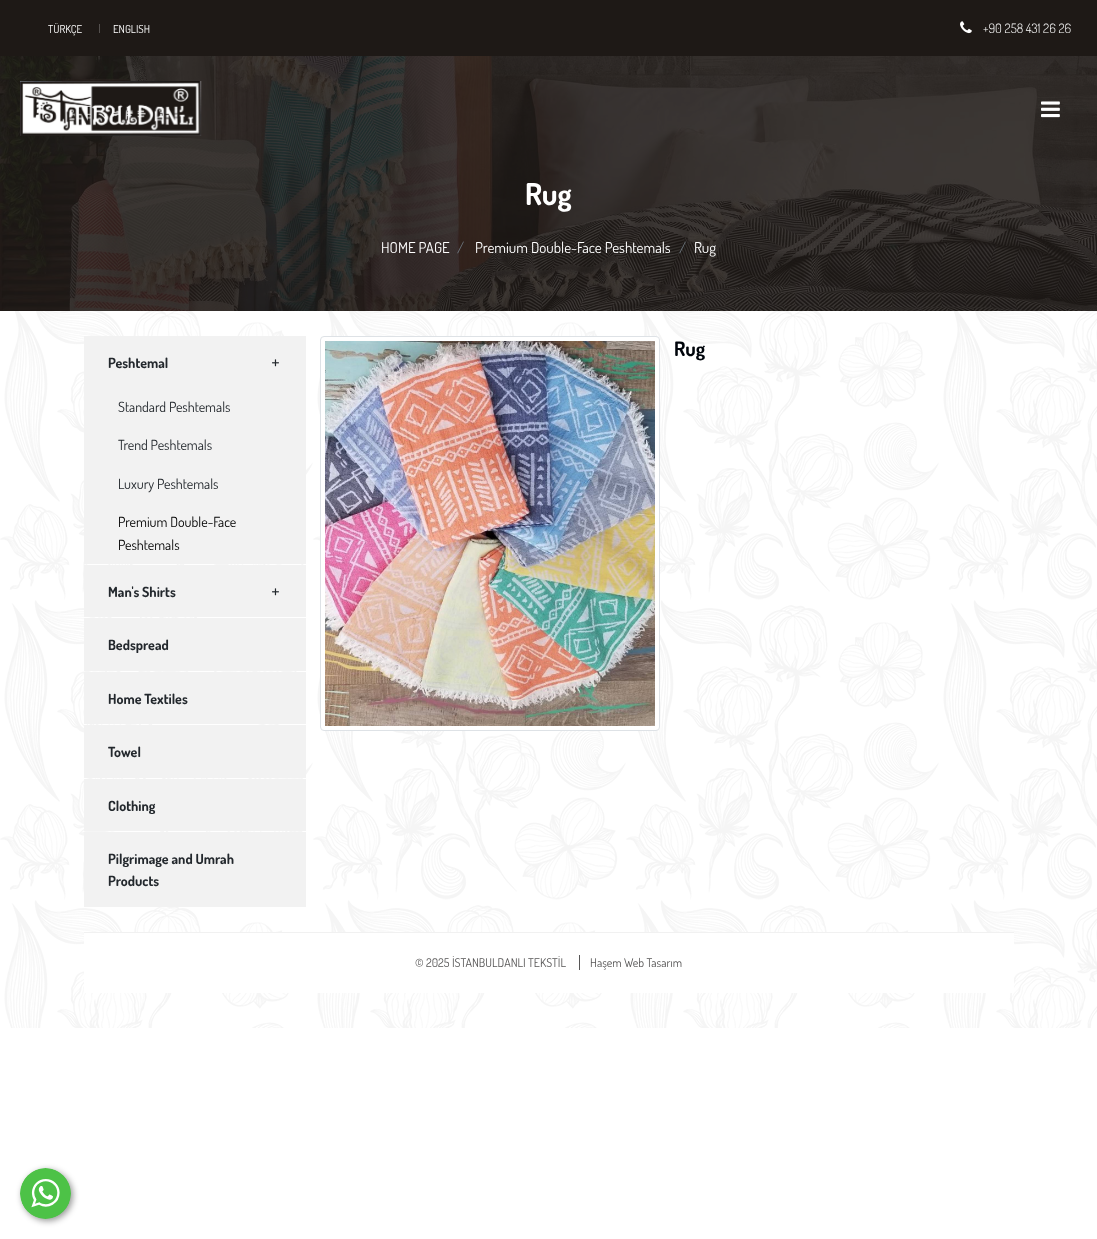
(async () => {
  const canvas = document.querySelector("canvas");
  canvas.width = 1097;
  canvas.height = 1239;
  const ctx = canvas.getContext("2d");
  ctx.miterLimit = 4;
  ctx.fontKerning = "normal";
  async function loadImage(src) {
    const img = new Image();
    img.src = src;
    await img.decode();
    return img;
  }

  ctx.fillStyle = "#ffffff";
  ctx.fillRect(0, 0, 1097, 1239);
  ctx.fillStyle = "#1e1916";
  ctx.fillRect(0, 0, 1097, 56);
  ctx.fillStyle = "#54504e";
  ctx.fillRect(99, 24, 1, 9);
  ctx.drawImage(await loadImage("img/1.png"), 960, 21, 12, 13);
  ctx.drawImage(await loadImage("img/4.png"), 0, 56, 1097, 255);
  ctx.drawImage(await loadImage("img/2.png"), 20, 81, 182, 55);
  ctx.drawImage(await loadImage("img/3.png"), 1041, 101, 19, 17);
  ctx.drawImage(await loadImage("img/8.png"), 0, 311, 1097, 717);
  ctx.fillStyle = "#ffffff";
  ctx.beginPath();
  ctx.roundRect(320.5, 336.5, 339, 394, 3.5);
  ctx.fill();
  ctx.strokeStyle = "#dee2e6";
  ctx.stroke();
  ctx.drawImage(await loadImage("img/5.png"), 325, 341, 330, 385);
  ctx.fillStyle = "#f2f2f2";
  ctx.fillRect(84, 336, 222, 228);
  ctx.drawImage(await loadImage("img/6.png"), 272, 359, 7, 8);
  ctx.fillRect(84, 565, 222, 52);
  ctx.drawImage(await loadImage("img/6.png"), 272, 588, 7, 8);
  for (const [x, y, w, h, color] of [
    [84, 618, 222, 53, "#f2f2f2"],
    [84, 672, 222, 52, "#f2f2f2"],
    [84, 725, 222, 53, "#f2f2f2"],
    [84, 779, 222, 52, "#f2f2f2"],
    [84, 832, 222, 75, "#f2f2f2"],
    [84, 933, 930, 60, "#ffffff"],
    [84, 932, 930, 1, "#f1f1f1"],
    [579, 955, 1, 15, "#575656"],
  ]) {
    ctx.fillStyle = color;
    ctx.fillRect(x, y, w, h);
  }
  ctx.fillStyle = "rgba(0, 0, 0, 0.4)";
  ctx.filter = "blur(3px)";
  ctx.beginPath();
  ctx.roundRect(22, 1170, 51, 51, 25.5);
  ctx.fill();
  ctx.filter = "none";
  ctx.drawImage(await loadImage("img/7.png"), 20, 1168, 51, 51);
  ctx.font = "11px Dosis";
  ctx.fillStyle = "#ffffff";
  ctx.fillText("TÜRKÇE", 48, 33);
  ctx.fillText("ENGLISH", 113, 33);
  ctx.font = "300 13px Dosis";
  ctx.fillText("+90 258 431 26 26", 983, 33);
  ctx.font = "bold 30px Dosis";
  ctx.fillText("Rug", 525, 205);
  ctx.font = "15px Dosis";
  ctx.fillText("HOME PAGE", 381, 253);
  ctx.fillStyle = "#6c757d";
  ctx.fillText("/", 457, 253);
  ctx.fillStyle = "#ffffff";
  ctx.fillText("Premium Double-Face Peshtemals", 475, 253);
  ctx.fillStyle = "#6c757d";
  ctx.fillText("/", 679, 253);
  ctx.fillStyle = "#ffffff";
  ctx.fillText("Rug", 694, 253);
  ctx.font = "bold 20px Dosis";
  ctx.fillStyle = "#00050b";
  ctx.fillText("Rug", 674, 356);
  ctx.font = "bold 14px Dosis";
  ctx.fillStyle = "#23282d";
  ctx.fillText("Peshtemal", 108, 368);
  ctx.font = "14px Dosis";
  for (const [text, x, y] of [
    ["Standard Peshtemals", 118, 412],
    ["Trend Peshtemals", 118, 450],
    ["Luxury Peshtemals", 118, 489],
  ]) {
    ctx.fillText(text, x, y);
  }
  ctx.fillStyle = "#000000";
  ctx.fillText("Premium Double-Face", 118, 527);
  ctx.fillText("Peshtemals", 118, 550);
  ctx.font = "bold 14px Dosis";
  ctx.fillStyle = "#23282d";
  for (const [text, x, y] of [
    ["Man's Shirts", 108, 597],
    ["Bedspread", 108, 650],
    ["Home Textiles", 108, 704],
    ["Towel", 108, 757],
    ["Clothing", 108, 811],
    ["Pilgrimage and Umrah", 108, 864],
    ["Products", 108, 886],
  ]) {
    ctx.fillText(text, x, y);
  }
  ctx.font = "12px Dosis";
  ctx.fillStyle = "#575656";
  ctx.fillText("© 2025 İSTANBULDANLI TEKSTİL", 415, 967);
  ctx.fillText("Haşem Web Tasarım", 590, 967);
})();
